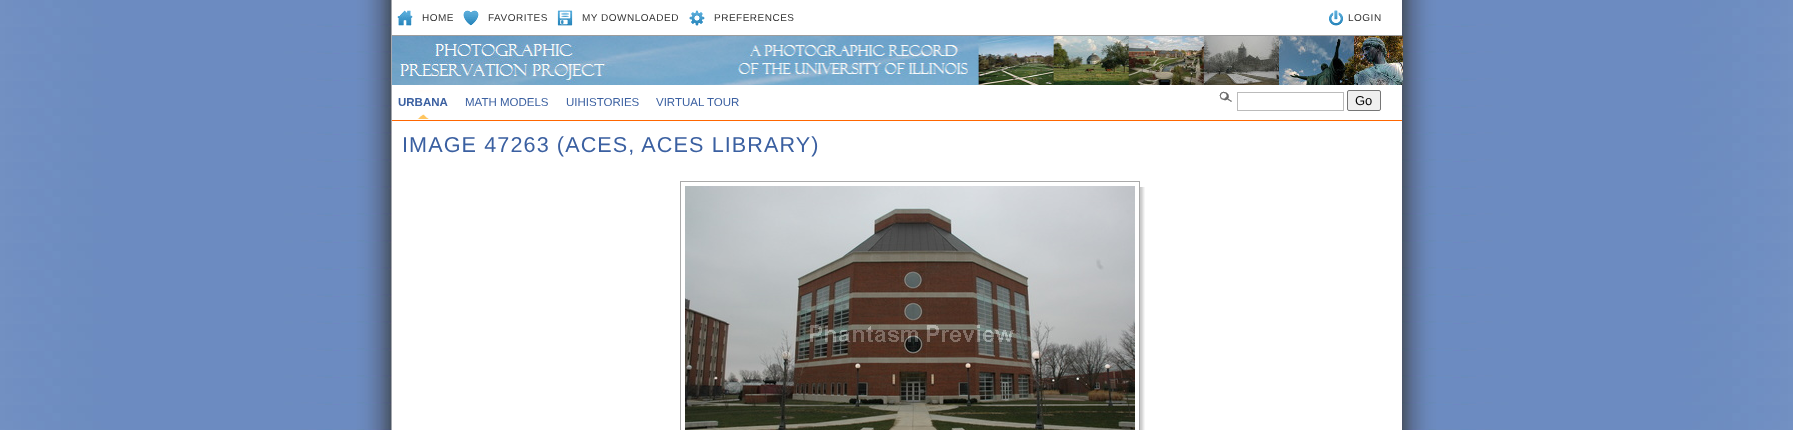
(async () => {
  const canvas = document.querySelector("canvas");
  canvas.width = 1793;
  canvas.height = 430;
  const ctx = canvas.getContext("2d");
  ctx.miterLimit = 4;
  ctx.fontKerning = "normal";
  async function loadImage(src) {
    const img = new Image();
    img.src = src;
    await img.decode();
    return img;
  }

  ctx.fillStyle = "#ffffff";
  ctx.fillRect(0, 0, 1793, 430);
  ctx.drawImage(await loadImage("img/1.png"), 0, 0, 1793, 430);
  ctx.fillRect(392, 0, 1010, 430);
  ctx.fillStyle = "#9d9d9d";
  ctx.fillRect(392, 35, 1010, 1);
  ctx.drawImage(await loadImage("img/2.png"), 397, 10, 16, 16);
  ctx.drawImage(await loadImage("img/3.png"), 463, 10, 16, 16);
  ctx.drawImage(await loadImage("img/4.png"), 557, 10, 16, 16);
  ctx.drawImage(await loadImage("img/5.png"), 689, 10, 16, 16);
  ctx.drawImage(await loadImage("img/6.png"), 1329, 10, 14, 16);
  ctx.drawImage(await loadImage("img/7.png"), 392, 36, 1011, 49);
  ctx.fillStyle = "#ff6600";
  ctx.fillRect(392, 120, 1010, 1);
  ctx.drawImage(await loadImage("img/8.png"), 414, 90, 18, 29);
  ctx.drawImage(await loadImage("img/9.png"), 1140, 187, 5, 243);
  ctx.strokeStyle = "#a9a9a9";
  ctx.strokeRect(680.5, 181.5, 459, 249);
  ctx.drawImage(await loadImage("img/10.png"), 685, 186, 450, 244);
  ctx.drawImage(await loadImage("img/11.png"), 1219, 91, 13, 11);
  ctx.strokeStyle = "#bbbbbb";
  ctx.strokeRect(1237.5, 92.5, 106, 18);
  ctx.fillStyle = "#efefef";
  ctx.beginPath();
  ctx.roundRect(1347.5, 90.5, 33, 20, 1.5);
  ctx.fill();
  ctx.strokeStyle = "#767676";
  ctx.stroke();
  ctx.letterSpacing = "0.5px";
  ctx.font = "10px Liberation Sans";
  ctx.fillStyle = "#333333";
  for (const [text, x, y] of [
    ["HOME", 422, 21],
    ["FAVORITES", 488, 21],
    ["MY DOWNLOADED", 582, 21],
    ["PREFERENCES", 714, 21],
    ["LOGIN", 1348, 21],
  ]) {
    ctx.fillText(text, x, y);
  }
  ctx.letterSpacing = "0px";
  ctx.font = "bold 11.5px Liberation Sans";
  ctx.fillStyle = "#3b60a1";
  ctx.fillText("URBANA", 398, 106);
  ctx.font = "11.5px Liberation Sans";
  for (const [text, x, y] of [
    ["MATH MODELS", 465, 106],
    ["UIHISTORIES", 566, 106],
    ["VIRTUAL TOUR", 656, 106],
  ]) {
    ctx.fillText(text, x, y);
  }
  ctx.letterSpacing = "1.1px";
  ctx.font = "21.6px Liberation Sans";
  ctx.fillText("IMAGE 47263 (ACES, ACES LIBRARY)", 402, 152);
  ctx.letterSpacing = "0px";
  ctx.font = "13px Liberation Sans";
  ctx.fillStyle = "#000000";
  ctx.fillText("Go", 1355, 105);
})();
